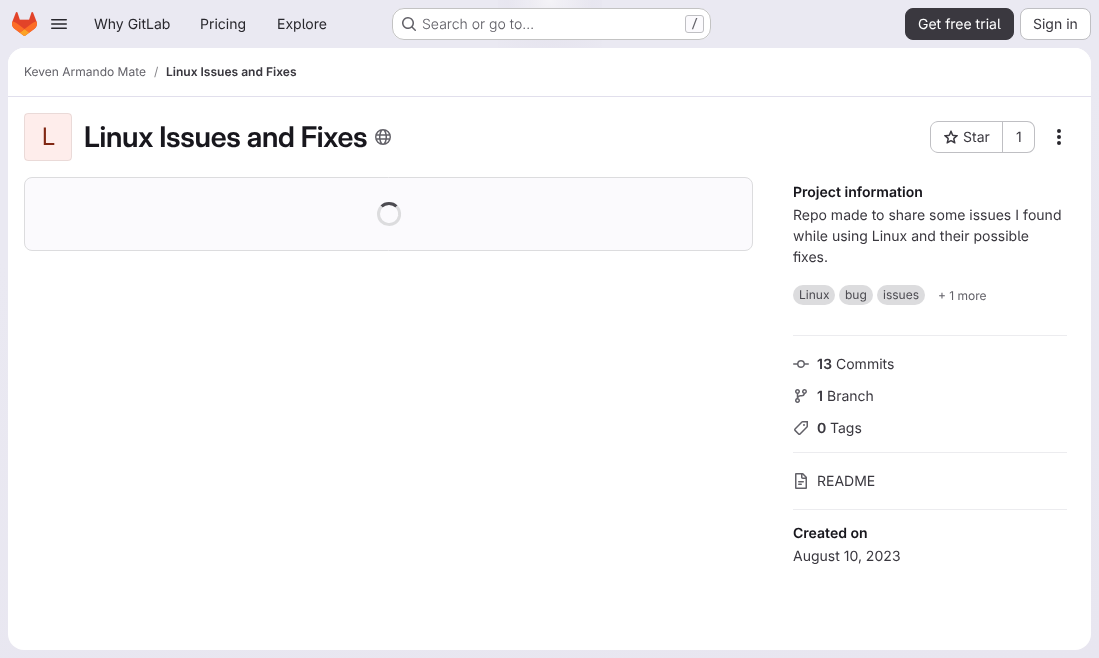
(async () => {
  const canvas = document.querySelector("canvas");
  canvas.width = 1099;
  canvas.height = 658;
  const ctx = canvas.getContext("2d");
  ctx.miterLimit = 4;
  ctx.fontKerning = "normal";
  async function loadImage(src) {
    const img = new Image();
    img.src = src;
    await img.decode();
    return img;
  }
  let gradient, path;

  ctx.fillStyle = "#ffffff";
  ctx.fillRect(0, 0, 1099, 658);
  gradient = ctx.createLinearGradient(622, 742, 477, -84);
  gradient.addColorStop(0, "#e8e6f0");
  gradient.addColorStop(0.7, "#eae9f2");
  ctx.fillStyle = gradient;
  ctx.fillRect(0, 0, 1099, 658);
  gradient = ctx.createRadialGradient(550, 0, 0, 550, 0, 550);
  gradient.addColorStop(0, "#e4e2ed");
  gradient.addColorStop(0.13, "rgba(228, 226, 237, 0)");
  ctx.fillStyle = gradient;
  ctx.beginPath();
  ctx.rect(498, 0, 104, 48);
  ctx.save();
  ctx.clip();
  ctx.scale(1, 658 / 550);
  ctx.fillRect(0, 0, 1099, 550);
  ctx.restore();
  gradient = ctx.createRadialGradient(550, 0, 0, 550, 0, 550);
  gradient.addColorStop(0, "#e4e2ec");
  gradient.addColorStop(0.09, "rgba(228, 226, 236, 0)");
  ctx.fillStyle = gradient;
  ctx.beginPath();
  ctx.rect(529, 0, 34, 14);
  ctx.save();
  ctx.clip();
  ctx.scale(1, 658 / 550);
  ctx.fillRect(0, 0, 1099, 550);
  ctx.restore();
  gradient = ctx.createRadialGradient(550, 0, 0, 550, 0, 857);
  gradient.addColorStop(0, "rgba(255, 255, 255, 0.6)");
  gradient.addColorStop(0.05, "rgba(255, 255, 255, 0)");
  ctx.fillStyle = gradient;
  ctx.fillRect(508, 0, 84, 8);
  ctx.drawImage(await loadImage("img/1.png"), 12, 12, 25, 24);
  ctx.drawImage(await loadImage("img/2.png"), 51, 19, 16, 10);
  ctx.fillStyle = "#ffffff";
  ctx.beginPath();
  ctx.roundRect(392, 8, 319, 32, 12);
  ctx.fill();
  ctx.beginPath();
  ctx.roundRect(392.5, 8.5, 318, 31, 11.5);
  ctx.strokeStyle = "rgba(5, 5, 6, 0.24)";
  ctx.stroke();
  ctx.drawImage(await loadImage("img/3.png"), 402, 17, 14, 14);
  ctx.fillStyle = "#fbfafd";
  ctx.beginPath();
  ctx.roundRect(685.5, 15.5, 18, 17, 2.5);
  ctx.fill();
  ctx.strokeStyle = "#bfbfc3";
  ctx.stroke();
  ctx.fillStyle = "#3a383f";
  ctx.beginPath();
  ctx.roundRect(905.5, 8.5, 108, 31, 7.5);
  ctx.fill();
  ctx.strokeStyle = "#3a383f";
  ctx.stroke();
  ctx.fillStyle = "#ffffff";
  ctx.beginPath();
  ctx.roundRect(1020.5, 8.5, 70, 31, 7.5);
  ctx.fill();
  ctx.strokeStyle = "#bfbfc3";
  ctx.stroke();
  ctx.beginPath();
  ctx.roundRect(8, 48, 1083, 602, 16);
  ctx.fill();
  ctx.beginPath();
  ctx.roundRect(8, 48, 1083, 49, [16, 16, 0, 0]);
  ctx.fill();
  ctx.fillStyle = "#e1dfec";
  ctx.fillRect(8, 96, 1083, 1);
  ctx.fillStyle = "#feedeb";
  ctx.beginPath();
  ctx.roundRect(24, 113, 48, 48, 4);
  ctx.fill();
  ctx.beginPath();
  ctx.roundRect(24.5, 113.5, 47, 47, 3.5);
  ctx.strokeStyle = "rgba(5, 5, 6, 0.08)";
  ctx.stroke();
  ctx.drawImage(await loadImage("img/4.png"), 375, 129, 16, 16);
  ctx.fillStyle = "#bfbfc3";
  path = new Path2D("M938 121H1002V153H938C934 153 930 149 930 145V129C930 125 934 121 938 121ZM938 122H1002V152H938C934 152 931 149 931 145V129C931 125 934 122 938 122Z");
  ctx.fill(path, "evenodd");
  ctx.drawImage(await loadImage("img/5.png"), 944, 130, 14, 14);
  path = new Path2D("M1003 121H1027C1031.5 121 1035 124.5 1035 129V145C1035 149.5 1031.5 153 1027 153H1003ZM1003 122H1027C1031 122 1034 125 1034 129V145C1034 149 1031 152 1027 152H1003Z");
  ctx.fill(path, "evenodd");
  ctx.fillRect(1002, 121, 1, 32);
  ctx.drawImage(await loadImage("img/6.png"), 1057, 129, 4, 16);
  ctx.fillStyle = "#fbfafd";
  ctx.beginPath();
  ctx.roundRect(24.5, 177.5, 728, 73, 7.5);
  ctx.fill();
  ctx.strokeStyle = "#dcdcde";
  ctx.stroke();
  path = new Path2D("M381.5 206.5C385.5 202.5 392.5 202.5 396.5 206.5");
  ctx.strokeStyle = "#4c4b51";
  ctx.lineWidth = 3;
  ctx.stroke(path);
  path = new Path2D("M396.5 206.5C399 209 400 212.5 399.5 216C397 228.5 378.5 226.5 378.5 214C378.5 211 379.5 208.5 381.5 206.5");
  ctx.strokeStyle = "#dcdcde";
  ctx.stroke(path);
  ctx.fillStyle = "#ececef";
  ctx.fillRect(793, 335, 274, 1);
  ctx.fillStyle = "#dcdcde";
  ctx.beginPath();
  ctx.roundRect(793, 285, 42, 20, 10);
  ctx.fill();
  ctx.beginPath();
  ctx.roundRect(839, 285, 34, 20, 10);
  ctx.fill();
  ctx.beginPath();
  ctx.roundRect(877, 285, 48, 20, 10);
  ctx.fill();
  ctx.fillStyle = "#ececef";
  ctx.fillRect(793, 452, 274, 1);
  ctx.drawImage(await loadImage("img/7.png"), 793, 360, 16, 8);
  ctx.drawImage(await loadImage("img/8.png"), 795, 389, 12, 14);
  ctx.drawImage(await loadImage("img/9.png"), 794, 421, 14, 14);
  ctx.fillRect(793, 509, 274, 1);
  ctx.drawImage(await loadImage("img/10.png"), 795, 473, 12, 16);
  ctx.font = "14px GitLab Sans";
  ctx.fillStyle = "#28272d";
  for (const [text, x, y] of [
    ["Why GitLab", 94, 29],
    ["Pricing", 200, 29],
    ["Explore", 277, 29],
  ]) {
    ctx.fillText(text, x, y);
  }
  ctx.font = "300 14px GitLab Sans";
  ctx.fillStyle = "#626168";
  ctx.fillText("Search or go to…", 422, 29);
  ctx.font = "500 12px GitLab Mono";
  ctx.fillText("/", 691, 28);
  ctx.font = "14px GitLab Sans";
  ctx.fillStyle = "#ffffff";
  ctx.fillText("Get free trial", 918, 29);
  ctx.fillStyle = "#3a383f";
  ctx.fillText("Sign in", 1033, 29);
  ctx.font = "12px GitLab Sans";
  ctx.fillStyle = "#626168";
  ctx.fillText("Keven Armando Mate", 24, 76);
  ctx.fillStyle = "#89888d";
  ctx.fillText("/", 154, 76);
  ctx.font = "600 12px 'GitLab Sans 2'";
  ctx.fillStyle = "#3a383f";
  ctx.fillText("Linux Issues and Fixes", 166, 76);
  ctx.font = "24px 'GitLab Sans 2'";
  ctx.fillStyle = "#812713";
  ctx.fillText("L", 42, 145);
  ctx.letterSpacing = "-0.25px";
  ctx.font = "600 28.5px GitLab Sans";
  ctx.fillStyle = "#18171d";
  ctx.fillText("Linux Issues and Fixes", 84, 147);
  ctx.letterSpacing = "0px";
  ctx.font = "14px GitLab Sans";
  ctx.fillStyle = "#3a383f";
  ctx.fillText("Star", 963, 142);
  ctx.fillText("1", 1016, 142);
  ctx.font = "600 14px 'GitLab Sans 2'";
  ctx.fillStyle = "#18171d";
  ctx.fillText("Project information", 793, 197);
  ctx.font = "14px GitLab Sans";
  ctx.fillStyle = "#3a383f";
  for (const [text, x, y] of [
    ["Repo made to share some issues I found", 793, 220],
    ["while using Linux and their possible", 793, 241],
    ["fixes.", 793, 262],
  ]) {
    ctx.fillText(text, x, y);
  }
  ctx.font = "12px GitLab Sans";
  ctx.fillStyle = "#4c4b51";
  for (const [text, x, y] of [
    ["Linux", 799, 299],
    ["bug", 845, 299],
    ["issues", 883, 299],
  ]) {
    ctx.fillText(text, x, y);
  }
  ctx.fillStyle = "#626168";
  ctx.fillText("+ 1 more", 938, 300);
  ctx.font = "600 14px 'GitLab Sans 2'";
  ctx.fillStyle = "#3a383f";
  ctx.fillText("13", 817, 369);
  ctx.font = "14px GitLab Sans";
  ctx.fillText("Commits", 836, 369);
  ctx.font = "600 14px 'GitLab Sans 2'";
  ctx.fillText("1", 817, 401);
  ctx.font = "14px GitLab Sans";
  ctx.fillText("Branch", 827, 401);
  ctx.font = "600 14px 'GitLab Sans 2'";
  ctx.fillText("0", 817, 433);
  ctx.font = "14px GitLab Sans";
  ctx.fillText("Tags", 830, 433);
  ctx.fillText("README", 817, 486);
  ctx.font = "600 14px 'GitLab Sans 2'";
  ctx.fillStyle = "#18171d";
  ctx.fillText("Created on", 793, 538);
  ctx.font = "14px GitLab Sans";
  ctx.fillStyle = "#3a383f";
  ctx.fillText("August 10, 2023", 793, 561);
})();
